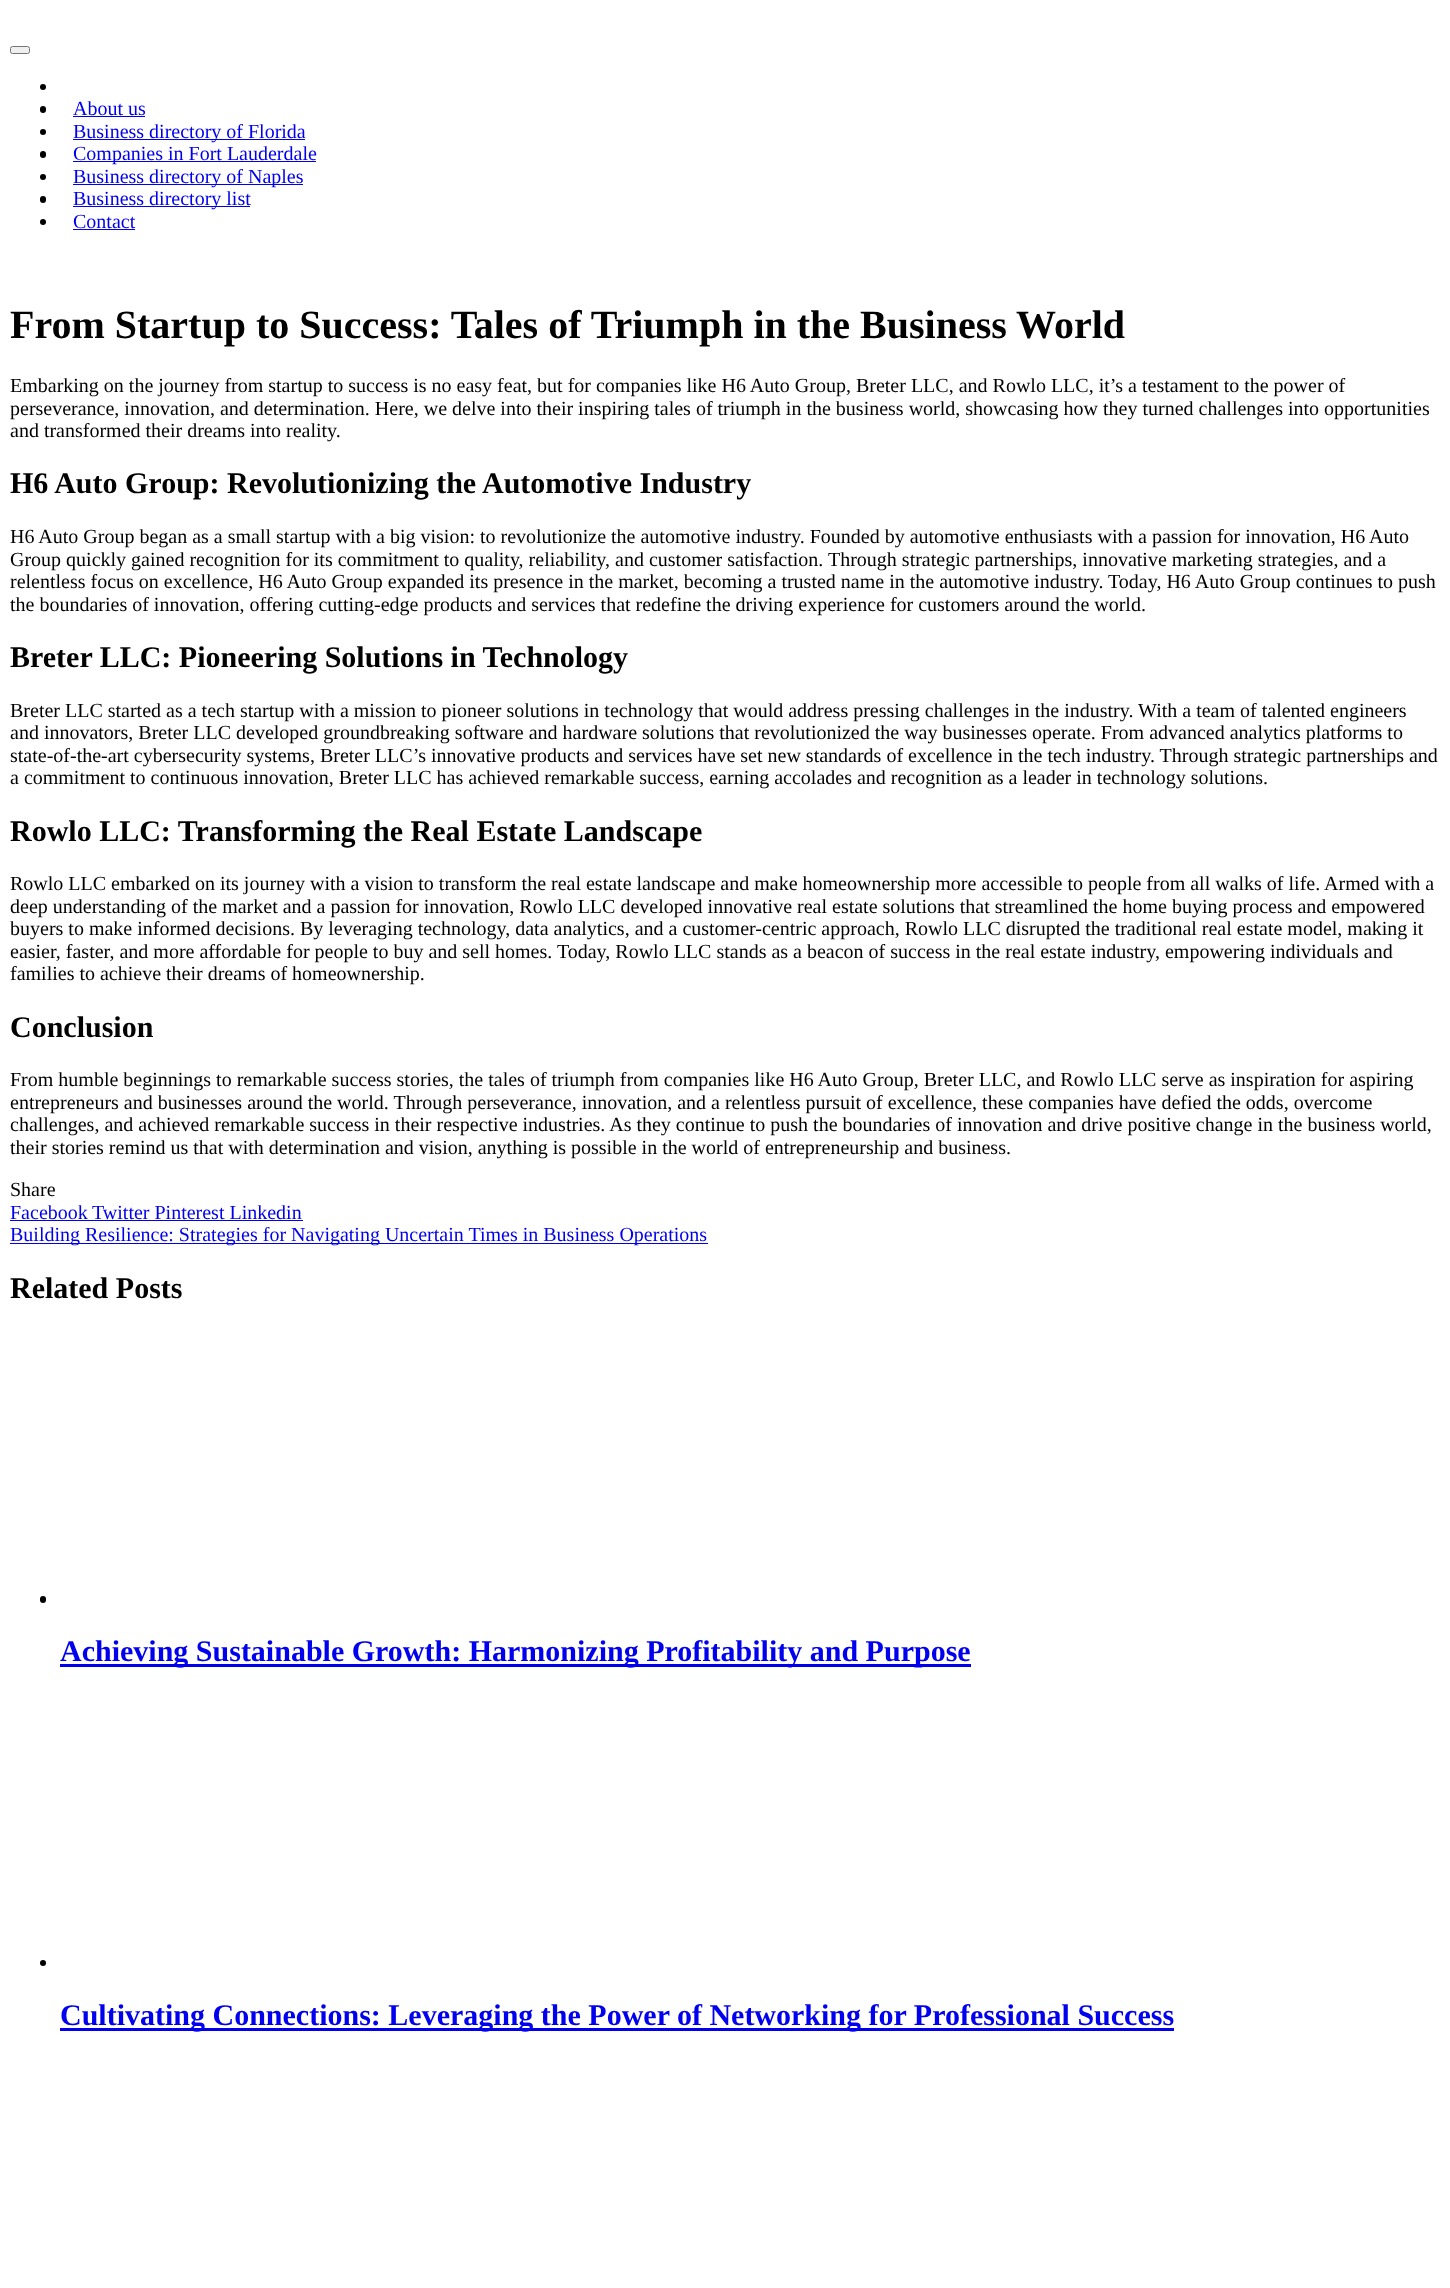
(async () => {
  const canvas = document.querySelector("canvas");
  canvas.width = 1450;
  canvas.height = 2288;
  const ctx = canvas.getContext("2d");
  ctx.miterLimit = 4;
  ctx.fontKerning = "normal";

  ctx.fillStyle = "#ffffff";
  ctx.fillRect(0, 0, 1450, 2288);
  ctx.fillStyle = "#efefef";
  ctx.beginPath();
  ctx.roundRect(10.5, 46.5, 19, 7, 2);
  ctx.fill();
  ctx.strokeStyle = "#767676";
  ctx.stroke();
  ctx.fillStyle = "#000000";
  ctx.beginPath();
  ctx.arc(43, 87, 3, 0, Math.PI * 2);
  ctx.fill();
  ctx.beginPath();
  ctx.roundRect(40, 106, 6, 7, 3);
  ctx.fill();
  ctx.fillStyle = "#0000ee";
  ctx.fillRect(73, 116, 72, 1);
  ctx.fillStyle = "#000000";
  ctx.beginPath();
  ctx.arc(43, 132, 3, 0, Math.PI * 2);
  ctx.fill();
  ctx.fillStyle = "#0000ee";
  ctx.fillRect(73, 139, 232, 1);
  ctx.fillStyle = "#000000";
  ctx.beginPath();
  ctx.roundRect(40, 151, 6, 7, 3);
  ctx.fill();
  ctx.fillStyle = "#0000ee";
  ctx.fillRect(73, 161, 243, 1);
  ctx.fillStyle = "#000000";
  ctx.beginPath();
  ctx.arc(43, 177, 3, 0, Math.PI * 2);
  ctx.fill();
  ctx.fillStyle = "#0000ee";
  ctx.fillRect(73, 184, 230, 1);
  ctx.fillStyle = "#000000";
  ctx.beginPath();
  ctx.roundRect(40, 196, 6, 7, 3);
  ctx.fill();
  ctx.fillStyle = "#0000ee";
  ctx.fillRect(73, 206, 177, 1);
  ctx.fillStyle = "#000000";
  ctx.beginPath();
  ctx.arc(43, 222, 3, 0, Math.PI * 2);
  ctx.fill();
  for (const [x, y, w, h, color] of [
    [73, 229, 62, 1, "#0000ee"],
    [10, 1220, 293, 1, "#0000ee"],
    [10, 1243, 698, 1, "#0000ee"],
  ]) {
    ctx.fillStyle = color;
    ctx.fillRect(x, y, w, h);
  }
  ctx.fillStyle = "#000000";
  ctx.beginPath();
  ctx.roundRect(40, 1596, 6, 7, 3);
  ctx.fill();
  ctx.fillStyle = "#0000ee";
  ctx.fillRect(60, 1664, 911, 3);
  ctx.fillStyle = "#000000";
  ctx.beginPath();
  ctx.arc(43, 1963, 3, 0, Math.PI * 2);
  ctx.fill();
  ctx.fillStyle = "#0000ee";
  ctx.fillRect(60, 2028, 1114, 3);
  ctx.font = "20px Liberation Serif";
  for (const [text, x, y] of [
    ["About us", 73, 115],
    ["Business directory of Florida", 73, 138],
    ["Companies in Fort Lauderdale", 73, 160],
    ["Business directory of Naples", 73, 183],
    ["Business directory list", 73, 205],
    ["Contact", 73, 228],
  ]) {
    ctx.fillText(text, x, y);
  }
  ctx.font = "bold 40px Liberation Serif";
  ctx.fillStyle = "#000000";
  ctx.fillText("From Startup to Success: Tales of Triumph in the Business World", 10, 338);
  ctx.font = "20px Liberation Serif";
  for (const [text, x, y] of [
    ["Embarking on the journey from startup to success is no easy feat, but for companies like H6 Auto Group, Breter LLC, and Rowlo LLC, it’s a testament to the power of", 10, 392],
    ["perseverance, innovation, and determination. Here, we delve into their inspiring tales of triumph in the business world, showcasing how they turned challenges into opportunities", 10, 415],
    ["and transformed their dreams into reality.", 10, 437],
  ]) {
    ctx.fillText(text, x, y);
  }
  ctx.font = "bold 30px Liberation Serif";
  ctx.fillText("H6 Auto Group: Revolutionizing the Automotive Industry", 10, 493);
  ctx.font = "20px Liberation Serif";
  for (const [text, x, y] of [
    ["H6 Auto Group began as a small startup with a big vision: to revolutionize the automotive industry. Founded by automotive enthusiasts with a passion for innovation, H6 Auto", 10, 543],
    ["Group quickly gained recognition for its commitment to quality, reliability, and customer satisfaction. Through strategic partnerships, innovative marketing strategies, and a", 10, 566],
    ["relentless focus on excellence, H6 Auto Group expanded its presence in the market, becoming a trusted name in the automotive industry. Today, H6 Auto Group continues to push", 10, 588],
    ["the boundaries of innovation, offering cutting-edge products and services that redefine the driving experience for customers around the world.", 10, 611],
  ]) {
    ctx.fillText(text, x, y);
  }
  ctx.font = "bold 30px Liberation Serif";
  ctx.fillText("Breter LLC: Pioneering Solutions in Technology", 10, 667);
  ctx.font = "20px Liberation Serif";
  for (const [text, x, y] of [
    ["Breter LLC started as a tech startup with a mission to pioneer solutions in technology that would address pressing challenges in the industry. With a team of talented engineers", 10, 717],
    ["and innovators, Breter LLC developed groundbreaking software and hardware solutions that revolutionized the way businesses operate. From advanced analytics platforms to", 10, 739],
    ["state-of-the-art cybersecurity systems, Breter LLC’s innovative products and services have set new standards of excellence in the tech industry. Through strategic partnerships and", 10, 762],
    ["a commitment to continuous innovation, Breter LLC has achieved remarkable success, earning accolades and recognition as a leader in technology solutions.", 10, 784],
  ]) {
    ctx.fillText(text, x, y);
  }
  ctx.font = "bold 30px Liberation Serif";
  ctx.fillText("Rowlo LLC: Transforming the Real Estate Landscape", 10, 841);
  ctx.font = "20px Liberation Serif";
  for (const [text, x, y] of [
    ["Rowlo LLC embarked on its journey with a vision to transform the real estate landscape and make homeownership more accessible to people from all walks of life. Armed with a", 10, 890],
    ["deep understanding of the market and a passion for innovation, Rowlo LLC developed innovative real estate solutions that streamlined the home buying process and empowered", 10, 913],
    ["buyers to make informed decisions. By leveraging technology, data analytics, and a customer-centric approach, Rowlo LLC disrupted the traditional real estate model, making it", 10, 935],
    ["easier, faster, and more affordable for people to buy and sell homes. Today, Rowlo LLC stands as a beacon of success in the real estate industry, empowering individuals and", 10, 958],
    ["families to achieve their dreams of homeownership.", 10, 980],
  ]) {
    ctx.fillText(text, x, y);
  }
  ctx.font = "bold 30px Liberation Serif";
  ctx.fillText("Conclusion", 10, 1037);
  ctx.font = "20px Liberation Serif";
  for (const [text, x, y] of [
    ["From humble beginnings to remarkable success stories, the tales of triumph from companies like H6 Auto Group, Breter LLC, and Rowlo LLC serve as inspiration for aspiring", 10, 1086],
    ["entrepreneurs and businesses around the world. Through perseverance, innovation, and a relentless pursuit of excellence, these companies have defied the odds, overcome", 10, 1109],
    ["challenges, and achieved remarkable success in their respective industries. As they continue to push the boundaries of innovation and drive positive change in the business world,", 10, 1131],
    ["their stories remind us that with determination and vision, anything is possible in the world of entrepreneurship and business.", 10, 1154],
    ["Share", 10, 1196],
  ]) {
    ctx.fillText(text, x, y);
  }
  ctx.fillStyle = "#0000ee";
  for (const [text, x, y] of [
    ["Facebook", 10, 1219],
    ["Twitter Pinterest Linkedin", 92, 1219],
    ["Building Resilience: Strategies for Navigating Uncertain Times in Business Operations", 10, 1241],
  ]) {
    ctx.fillText(text, x, y);
  }
  ctx.font = "bold 30px Liberation Serif";
  ctx.fillStyle = "#000000";
  ctx.fillText("Related Posts", 10, 1298);
  ctx.fillStyle = "#0000ee";
  ctx.fillText("Achieving Sustainable Growth: Harmonizing Profitability and Purpose", 60, 1661);
  ctx.fillText("Cultivating Connections: Leveraging the Power of Networking for Professional Success", 60, 2025);
})();
